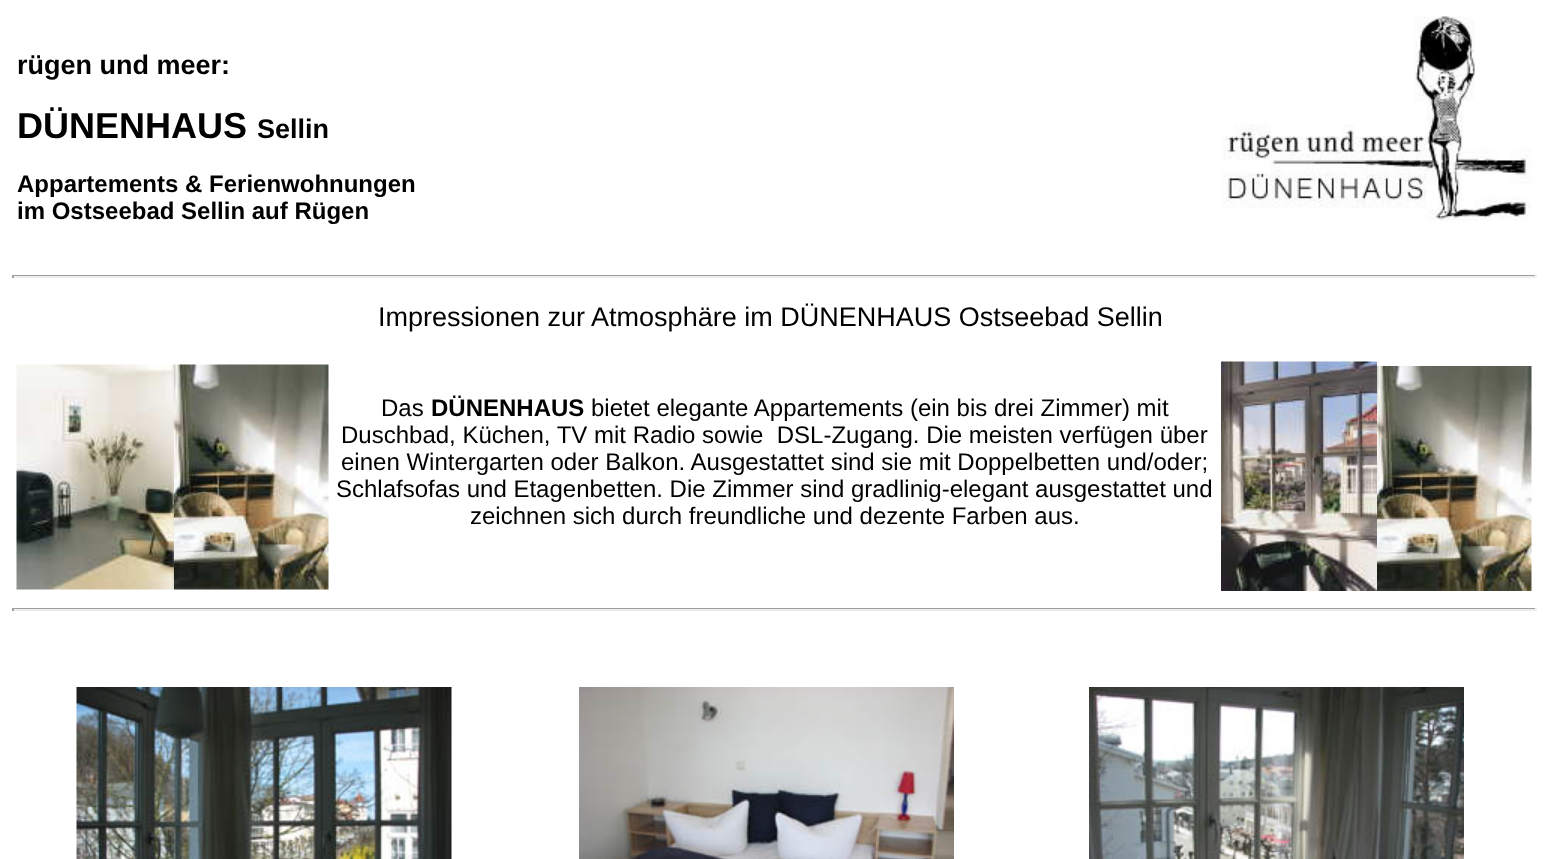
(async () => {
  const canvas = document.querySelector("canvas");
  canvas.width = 1548;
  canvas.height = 859;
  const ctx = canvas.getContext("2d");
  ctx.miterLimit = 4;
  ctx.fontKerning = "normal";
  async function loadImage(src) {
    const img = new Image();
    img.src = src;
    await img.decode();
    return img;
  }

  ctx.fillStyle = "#ffffff";
  ctx.fillRect(0, 0, 1548, 859);
  ctx.drawImage(await loadImage("img/1.png"), 1222, 16, 310, 205);
  for (const [x, y, w, h, color] of [
    [12, 275, 1524, 1, "#9f9f9f"],
    [1535, 275, 2, 3, "#eeeeee"],
    [12, 276, 1524, 2, "#eeeeee"],
    [12, 275, 2, 3, "#9f9f9f"],
  ]) {
    ctx.fillStyle = color;
    ctx.fillRect(x, y, w, h);
  }
  ctx.drawImage(await loadImage("img/2.png"), 16, 364, 158, 226);
  ctx.drawImage(await loadImage("img/3.png"), 174, 364, 155, 226);
  ctx.drawImage(await loadImage("img/4.png"), 1221, 361, 156, 230);
  ctx.drawImage(await loadImage("img/5.png"), 1377, 366, 155, 225);
  for (const [x, y, w, h, color] of [
    [12, 608, 1524, 1, "#9f9f9f"],
    [1535, 608, 2, 3, "#eeeeee"],
    [12, 609, 1524, 2, "#eeeeee"],
    [12, 608, 2, 3, "#9f9f9f"],
  ]) {
    ctx.fillStyle = color;
    ctx.fillRect(x, y, w, h);
  }
  ctx.drawImage(await loadImage("img/6.png"), 76, 687, 376, 172);
  ctx.drawImage(await loadImage("img/7.png"), 579, 687, 375, 172);
  ctx.drawImage(await loadImage("img/8.png"), 1089, 687, 375, 172);
  ctx.font = "bold 27px Liberation Sans";
  ctx.fillStyle = "#000000";
  ctx.fillText("rügen und meer:", 17, 74);
  ctx.font = "bold 36px Liberation Sans";
  ctx.fillText("DÜNENHAUS", 17, 138);
  ctx.font = "bold 27px Liberation Sans";
  ctx.fillText("Sellin", 257, 138);
  ctx.font = "bold 24px Liberation Sans";
  ctx.fillText("Appartements & Ferienwohnungen", 17, 192);
  ctx.fillText("im Ostseebad Sellin auf Rügen", 17, 219);
  ctx.font = "27px Liberation Sans";
  ctx.fillText("Impressionen zur Atmosphäre im DÜNENHAUS Ostseebad Sellin", 378, 326);
  ctx.font = "24px Liberation Sans";
  ctx.fillText("Das", 381, 416);
  ctx.font = "bold 24px Liberation Sans";
  ctx.fillText("DÜNENHAUS", 431, 416);
  ctx.font = "24px Liberation Sans";
  for (const [text, x, y] of [
    ["bietet elegante Appartements (ein bis drei Zimmer) mit", 591, 416],
    ["Duschbad, Küchen, TV mit Radio sowie  DSL-Zugang. Die meisten verfügen über", 341, 443],
    ["einen Wintergarten oder Balkon. Ausgestattet sind sie mit Doppelbetten und/oder;", 341, 470],
    ["Schlafsofas und Etagenbetten. Die Zimmer sind gradlinig-elegant ausgestattet und", 336, 497],
    ["zeichnen sich durch freundliche und dezente Farben aus.", 470, 524],
  ]) {
    ctx.fillText(text, x, y);
  }
})();
